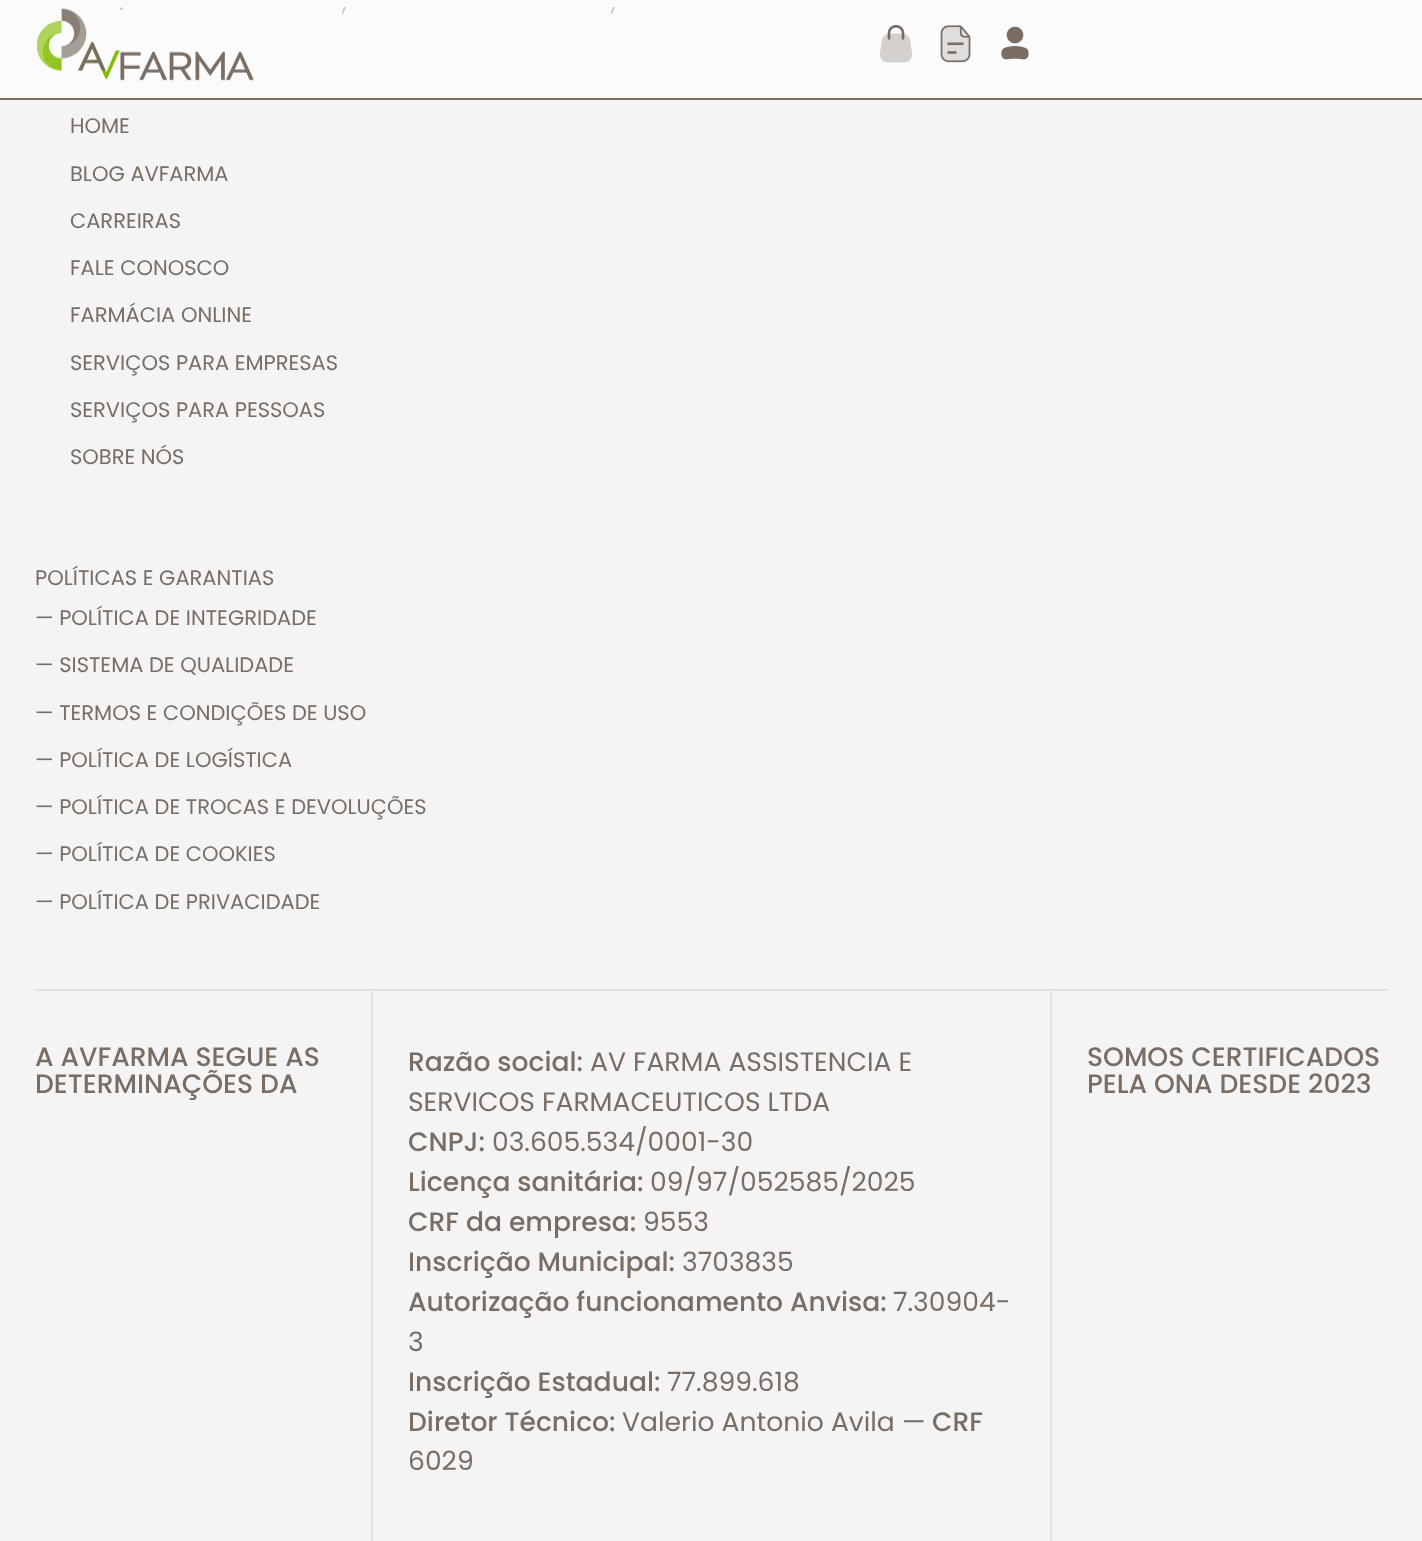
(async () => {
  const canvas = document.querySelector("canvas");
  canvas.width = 1422;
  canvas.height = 1541;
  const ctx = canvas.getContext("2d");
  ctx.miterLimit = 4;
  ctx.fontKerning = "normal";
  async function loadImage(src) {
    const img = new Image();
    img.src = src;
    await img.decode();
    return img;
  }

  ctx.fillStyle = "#f4f4f4";
  ctx.fillRect(0, 0, 1422, 1541);
  for (const [x, y, w, h, color] of [
    [0, 0, 1422, 98, "#fbfbfb"],
    [35, 989, 1353, 2, "#e2e2e2"],
    [371, 991, 2, 550, "#e2e2e2"],
    [1050, 991, 2, 550, "#e2e2e2"],
    [0, 98, 1422, 2, "#796d64"],
  ]) {
    ctx.fillStyle = color;
    ctx.fillRect(x, y, w, h);
  }
  ctx.drawImage(await loadImage("img/2.png"), 880, 25, 32, 38);
  ctx.drawImage(await loadImage("img/3.png"), 940, 25, 31, 38);
  ctx.drawImage(await loadImage("img/4.png"), 1001, 26, 28, 34);
  ctx.font = "300 26.6px Poppins";
  ctx.fillStyle = "#c9c5c1";
  for (const [text, x, y] of [
    [".", 119, 10],
    [",", 342, 10],
    [",", 611, 10],
  ]) {
    ctx.fillText(text, x, y);
  }
  ctx.font = "21px Poppins";
  ctx.fillStyle = "#796d64";
  for (const [text, x, y] of [
    ["HOME", 70, 133],
    ["BLOG AVFARMA", 70, 181],
    ["CARREIRAS", 70, 228],
    ["FALE CONOSCO", 70, 275],
    ["FARMÁCIA ONLINE", 70, 322],
    ["SERVIÇOS PARA EMPRESAS", 70, 370],
    ["SERVIÇOS PARA PESSOAS", 70, 417],
    ["SOBRE NÓS", 70, 464],
    ["POLÍTICAS E GARANTIAS", 35, 585],
    ["— POLÍTICA DE INTEGRIDADE", 35, 625],
    ["— SISTEMA DE QUALIDADE", 35, 672],
    ["— TERMOS E CONDIÇÕES DE USO", 35, 720],
    ["— POLÍTICA DE LOGÍSTICA", 35, 767],
    ["— POLÍTICA DE TROCAS E DEVOLUÇÕES", 35, 814],
    ["— POLÍTICA DE COOKIES", 35, 861],
    ["— POLÍTICA DE PRIVACIDADE", 35, 909],
  ]) {
    ctx.fillText(text, x, y);
  }
  ctx.font = "500 26.6px Poppins";
  for (const [text, x, y] of [
    ["A AVFARMA SEGUE AS", 35, 1066],
    ["DETERMINAÇÕES DA", 35, 1093],
    ["Razão social:", 408, 1071],
  ]) {
    ctx.fillText(text, x, y);
  }
  ctx.font = "26.6px Poppins";
  ctx.fillText("AV FARMA ASSISTENCIA E", 590, 1071);
  ctx.fillText("SERVICOS FARMACEUTICOS LTDA", 408, 1111);
  ctx.font = "500 26.6px Poppins";
  ctx.fillText("CNPJ:", 408, 1151);
  ctx.font = "26.6px Poppins";
  ctx.fillText("03.605.534/0001-30", 492, 1151);
  ctx.font = "500 26.6px Poppins";
  ctx.fillText("Licença sanitária:", 408, 1191);
  ctx.font = "26.6px Poppins";
  ctx.fillText("09/97/052585/2025", 650, 1191);
  ctx.font = "500 26.6px Poppins";
  ctx.fillText("CRF da empresa:", 408, 1231);
  ctx.font = "26.6px Poppins";
  ctx.fillText("9553", 643, 1231);
  ctx.font = "500 26.6px Poppins";
  ctx.fillText("Inscrição Municipal:", 408, 1271);
  ctx.font = "26.6px Poppins";
  ctx.fillText("3703835", 682, 1271);
  ctx.font = "500 26.6px Poppins";
  ctx.fillText("Autorização funcionamento Anvisa:", 408, 1311);
  ctx.font = "26.6px Poppins";
  ctx.fillText("7.30904-", 893, 1311);
  ctx.fillText("3", 408, 1351);
  ctx.font = "500 26.6px Poppins";
  ctx.fillText("Inscrição Estadual:", 408, 1391);
  ctx.font = "26.6px Poppins";
  ctx.fillText("77.899.618", 667, 1391);
  ctx.font = "500 26.6px Poppins";
  ctx.fillText("Diretor Técnico:", 408, 1431);
  ctx.font = "26.6px Poppins";
  ctx.fillText("Valerio Antonio Avila —", 622, 1431);
  ctx.font = "500 26.6px Poppins";
  ctx.fillText("CRF", 932, 1431);
  ctx.font = "26.6px Poppins";
  ctx.fillText("6029", 408, 1470);
  ctx.font = "500 26.6px Poppins";
  ctx.fillText("SOMOS CERTIFICADOS", 1087, 1066);
  ctx.fillText("PELA ONA DESDE 2023", 1087, 1093);
  ctx.drawImage(await loadImage("img/1.png"), 37, 8, 217, 73);
})();
